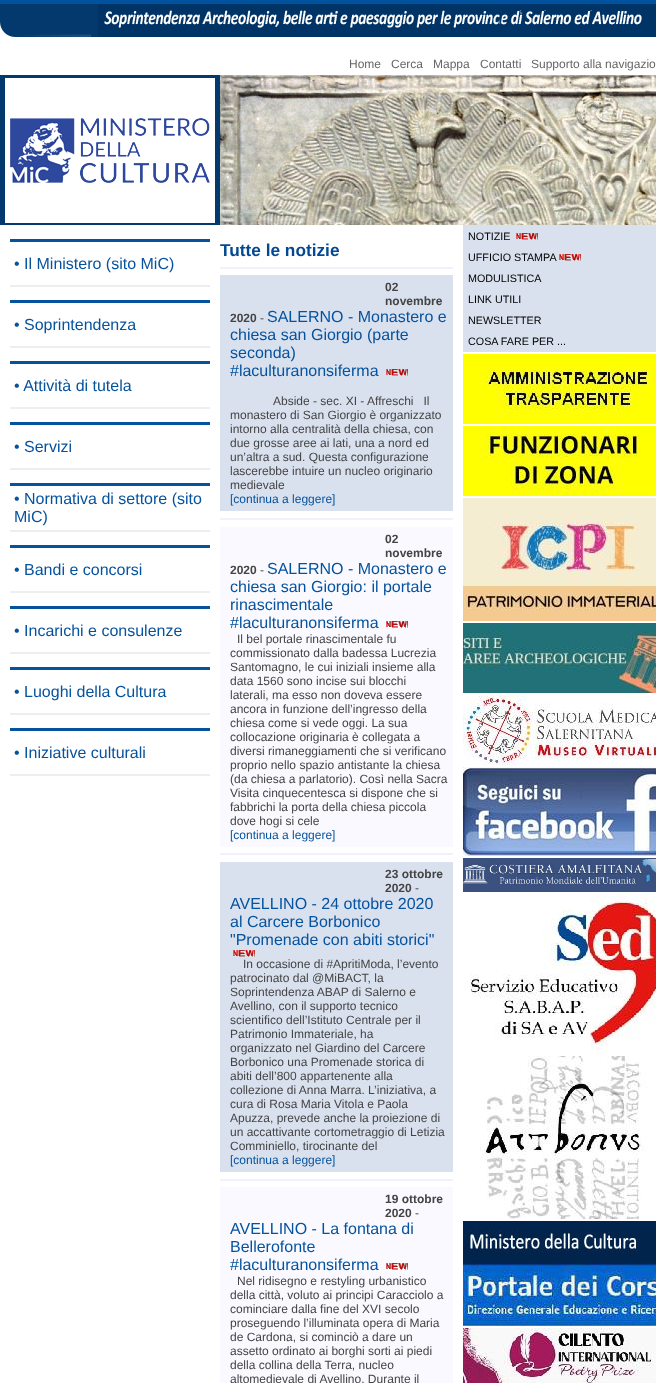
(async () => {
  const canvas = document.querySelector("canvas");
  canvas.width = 656;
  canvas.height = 1383;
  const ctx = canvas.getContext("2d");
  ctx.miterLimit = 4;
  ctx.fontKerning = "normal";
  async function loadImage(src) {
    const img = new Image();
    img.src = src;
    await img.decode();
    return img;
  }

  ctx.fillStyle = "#ffffff";
  ctx.fillRect(0, 0, 656, 1383);
  ctx.fillStyle = "#00529e";
  ctx.fillRect(0, 0, 656, 4);
  ctx.drawImage(await loadImage("img/1.png"), 0, 4, 656, 33);
  ctx.fillStyle = "#03396d";
  ctx.fillRect(0, 75, 220, 150);
  ctx.drawImage(await loadImage("img/2.png"), 5, 78, 210, 145);
  ctx.drawImage(await loadImage("img/3.png"), 220, 75, 436, 150);
  for (const [x, y, w, h, color] of [
    [10, 239, 200, 3, "#05529e"],
    [10, 285, 200, 2, "#eeeeee"],
    [10, 300, 200, 3, "#05529e"],
    [10, 346, 200, 2, "#eeeeee"],
    [10, 361, 200, 3, "#05529e"],
    [10, 407, 200, 2, "#eeeeee"],
    [10, 422, 200, 3, "#05529e"],
    [10, 468, 200, 2, "#eeeeee"],
    [10, 483, 200, 3, "#05529e"],
    [10, 530, 200, 2, "#eeeeee"],
    [10, 545, 200, 3, "#05529e"],
    [10, 591, 200, 2, "#eeeeee"],
    [10, 606, 200, 3, "#05529e"],
    [10, 652, 200, 2, "#eeeeee"],
    [10, 667, 200, 3, "#05529e"],
    [10, 713, 200, 2, "#eeeeee"],
    [10, 728, 200, 3, "#05529e"],
    [10, 774, 200, 2, "#eeeeee"],
    [220, 267, 233, 2, "#f0f0ff"],
    [220, 275, 233, 236, "#d9e1ef"],
  ]) {
    ctx.fillStyle = color;
    ctx.fillRect(x, y, w, h);
  }
  ctx.drawImage(await loadImage("img/4.png"), 386, 369, 22, 7);
  ctx.fillStyle = "#f0f0ff";
  ctx.fillRect(220, 518, 233, 2);
  ctx.fillStyle = "#f9f9ff";
  ctx.fillRect(220, 527, 233, 320);
  ctx.drawImage(await loadImage("img/5.png"), 386, 621, 22, 7);
  ctx.fillStyle = "#f0f0ff";
  ctx.fillRect(220, 853, 233, 2);
  ctx.fillStyle = "#d9e1ef";
  ctx.fillRect(220, 862, 233, 310);
  ctx.drawImage(await loadImage("img/4.png"), 233, 950, 22, 7);
  ctx.fillStyle = "#f0f0ff";
  ctx.fillRect(220, 1179, 233, 2);
  ctx.fillStyle = "#f9f9ff";
  ctx.fillRect(220, 1187, 233, 196);
  ctx.drawImage(await loadImage("img/5.png"), 386, 1263, 22, 7);
  ctx.fillStyle = "#d9e1ef";
  ctx.fillRect(463, 225, 193, 127);
  ctx.drawImage(await loadImage("img/4.png"), 516, 233, 22, 7);
  ctx.drawImage(await loadImage("img/4.png"), 559, 254, 22, 7);
  ctx.drawImage(await loadImage("img/6.png"), 463, 354, 193, 70);
  ctx.drawImage(await loadImage("img/7.png"), 463, 426, 193, 70);
  ctx.drawImage(await loadImage("img/8.png"), 463, 498, 193, 123);
  ctx.drawImage(await loadImage("img/9.png"), 463, 623, 193, 70);
  ctx.drawImage(await loadImage("img/10.png"), 463, 695, 193, 70);
  ctx.drawImage(await loadImage("img/11.png"), 463, 767, 193, 89);
  ctx.drawImage(await loadImage("img/12.png"), 463, 858, 193, 34);
  ctx.drawImage(await loadImage("img/13.png"), 471, 894, 185, 160);
  ctx.drawImage(await loadImage("img/14.png"), 480, 1056, 167, 163);
  ctx.drawImage(await loadImage("img/15.png"), 463, 1221, 193, 105);
  ctx.drawImage(await loadImage("img/16.png"), 463, 1328, 193, 55);
  ctx.font = "12px Liberation Sans";
  ctx.fillStyle = "#666666";
  for (const [text, x, y] of [
    ["Home", 349, 68],
    ["Cerca", 391, 68],
    ["Mappa", 433, 68],
    ["Contatti", 480, 68],
    ["Supporto alla navigazio", 531, 68],
  ]) {
    ctx.fillText(text, x, y);
  }
  ctx.font = "16px Liberation Sans";
  ctx.fillStyle = "#05529e";
  for (const [text, x, y] of [
    ["• Il Ministero (sito MiC)", 14, 269],
    ["• Soprintendenza", 14, 330],
    ["• Attività di tutela", 14, 391],
    ["• Servizi", 14, 452],
    ["• Normativa di settore (sito", 14, 504],
    ["MiC)", 14, 522],
    ["• Bandi e concorsi", 14, 575],
    ["• Incarichi e consulenze", 14, 636],
    ["• Luoghi della Cultura", 14, 697],
    ["• Iniziative culturali", 14, 758],
  ]) {
    ctx.fillText(text, x, y);
  }
  ctx.font = "bold 17.25px Liberation Sans";
  ctx.fillStyle = "#034893";
  ctx.fillText("Tutte le notizie", 220, 256);
  ctx.font = "bold 12px Liberation Sans";
  ctx.fillStyle = "#444444";
  for (const [text, x, y] of [
    ["02", 385, 291],
    ["novembre", 385, 305],
    ["2020", 230, 322],
  ]) {
    ctx.fillText(text, x, y);
  }
  ctx.font = "12px Liberation Sans";
  ctx.fillText("-", 260, 322);
  ctx.font = "16px Liberation Sans";
  ctx.fillStyle = "#05529e";
  for (const [text, x, y] of [
    ["SALERNO - Monastero e", 267, 322],
    ["chiesa san Giorgio (parte", 230, 340],
    ["seconda)", 230, 358],
    ["#laculturanonsiferma", 230, 376],
  ]) {
    ctx.fillText(text, x, y);
  }
  ctx.font = "12px Liberation Sans";
  ctx.fillStyle = "#444444";
  for (const [text, x, y] of [
    ["Abside - sec. XI - Affreschi   Il", 273, 405],
    ["monastero di San Giorgio è organizzato", 230, 419],
    ["intorno alla centralità della chiesa, con", 230, 433],
    ["due grosse aree ai lati, una a nord ed", 230, 447],
    ["un’altra a sud. Questa configurazione", 230, 461],
    ["lascerebbe intuire un nucleo originario", 230, 475],
    ["medievale", 230, 489],
  ]) {
    ctx.fillText(text, x, y);
  }
  ctx.fillStyle = "#05529e";
  ctx.fillText("[continua a leggere]", 230, 503);
  ctx.font = "bold 12px Liberation Sans";
  ctx.fillStyle = "#444444";
  for (const [text, x, y] of [
    ["02", 385, 543],
    ["novembre", 385, 557],
    ["2020", 230, 574],
  ]) {
    ctx.fillText(text, x, y);
  }
  ctx.font = "12px Liberation Sans";
  ctx.fillText("-", 260, 574);
  ctx.font = "16px Liberation Sans";
  ctx.fillStyle = "#05529e";
  for (const [text, x, y] of [
    ["SALERNO - Monastero e", 267, 574],
    ["chiesa san Giorgio: il portale", 230, 592],
    ["rinascimentale", 230, 610],
    ["#laculturanonsiferma", 230, 628],
  ]) {
    ctx.fillText(text, x, y);
  }
  ctx.font = "12px Liberation Sans";
  ctx.fillStyle = "#444444";
  for (const [text, x, y] of [
    ["Il bel portale rinascimentale fu", 237, 643],
    ["commissionato dalla badessa Lucrezia", 230, 657],
    ["Santomagno, le cui iniziali insieme alla", 230, 671],
    ["data 1560 sono incise sui blocchi", 230, 685],
    ["laterali, ma esso non doveva essere", 230, 699],
    ["ancora in funzione dell’ingresso della", 230, 713],
    ["chiesa come si vede oggi. La sua", 230, 727],
    ["collocazione originaria è collegata a", 230, 741],
    ["diversi rimaneggiamenti che si verificano", 230, 755],
    ["proprio nello spazio antistante la chiesa", 230, 769],
    ["(da chiesa a parlatorio). Così nella Sacra", 230, 783],
    ["Visita cinquecentesca si dispone che si", 230, 797],
    ["fabbrichi la porta della chiesa piccola", 230, 811],
    ["dove hogi si cele", 230, 825],
  ]) {
    ctx.fillText(text, x, y);
  }
  ctx.fillStyle = "#05529e";
  ctx.fillText("[continua a leggere]", 230, 839);
  ctx.font = "bold 12px Liberation Sans";
  ctx.fillStyle = "#444444";
  ctx.fillText("23 ottobre", 385, 878);
  ctx.fillText("2020", 385, 892);
  ctx.font = "12px Liberation Sans";
  ctx.fillText("-", 415, 892);
  ctx.font = "16px Liberation Sans";
  ctx.fillStyle = "#05529e";
  for (const [text, x, y] of [
    ["AVELLINO - 24 ottobre 2020", 230, 909],
    ["al Carcere Borbonico", 230, 927],
    ["\"Promenade con abiti storici\"", 230, 945],
  ]) {
    ctx.fillText(text, x, y);
  }
  ctx.font = "12px Liberation Sans";
  ctx.fillStyle = "#444444";
  for (const [text, x, y] of [
    ["In occasione di #ApritiModa, l’evento", 243, 968],
    ["patrocinato dal @MiBACT, la", 230, 982],
    ["Soprintendenza ABAP di Salerno e", 230, 996],
    ["Avellino, con il supporto tecnico", 230, 1010],
    ["scientifico dell’Istituto Centrale per il", 230, 1024],
    ["Patrimonio Immateriale, ha", 230, 1038],
    ["organizzato nel Giardino del Carcere", 230, 1052],
    ["Borbonico una Promenade storica di", 230, 1066],
    ["abiti dell’800 appartenente alla", 230, 1080],
    ["collezione di Anna Marra. L’iniziativa, a", 230, 1094],
    ["cura di Rosa Maria Vitola e Paola", 230, 1108],
    ["Apuzza, prevede anche la proiezione di", 230, 1122],
    ["un accattivante cortometraggio di Letizia", 230, 1136],
    ["Comminiello, tirocinante del", 230, 1150],
  ]) {
    ctx.fillText(text, x, y);
  }
  ctx.fillStyle = "#05529e";
  ctx.fillText("[continua a leggere]", 230, 1164);
  ctx.font = "bold 12px Liberation Sans";
  ctx.fillStyle = "#444444";
  ctx.fillText("19 ottobre", 385, 1203);
  ctx.fillText("2020", 385, 1217);
  ctx.font = "12px Liberation Sans";
  ctx.fillText("-", 415, 1217);
  ctx.font = "16px Liberation Sans";
  ctx.fillStyle = "#05529e";
  for (const [text, x, y] of [
    ["AVELLINO - La fontana di", 230, 1234],
    ["Bellerofonte", 230, 1252],
    ["#laculturanonsiferma", 230, 1270],
  ]) {
    ctx.fillText(text, x, y);
  }
  ctx.font = "12px Liberation Sans";
  ctx.fillStyle = "#444444";
  for (const [text, x, y] of [
    ["Nel ridisegno e restyling urbanistico", 237, 1285],
    ["della città, voluto ai principi Caracciolo a", 230, 1299],
    ["cominciare dalla fine del XVI secolo", 230, 1313],
    ["proseguendo l’illuminata opera di Maria", 230, 1327],
    ["de Cardona, si cominciò a dare un", 230, 1341],
    ["assetto ordinato ai borghi sorti ai piedi", 230, 1355],
    ["della collina della Terra, nucleo", 230, 1369],
    ["altomedievale di Avellino. Durante il", 230, 1383],
  ]) {
    ctx.fillText(text, x, y);
  }
  ctx.font = "10.75px Liberation Sans";
  ctx.fillStyle = "#000000";
  for (const [text, x, y] of [
    ["NOTIZIE", 468, 240],
    ["UFFICIO STAMPA", 468, 261],
    ["MODULISTICA", 468, 282],
    ["LINK UTILI", 468, 303],
    ["NEWSLETTER", 468, 324],
    ["COSA FARE PER ...", 468, 345],
  ]) {
    ctx.fillText(text, x, y);
  }
})();
